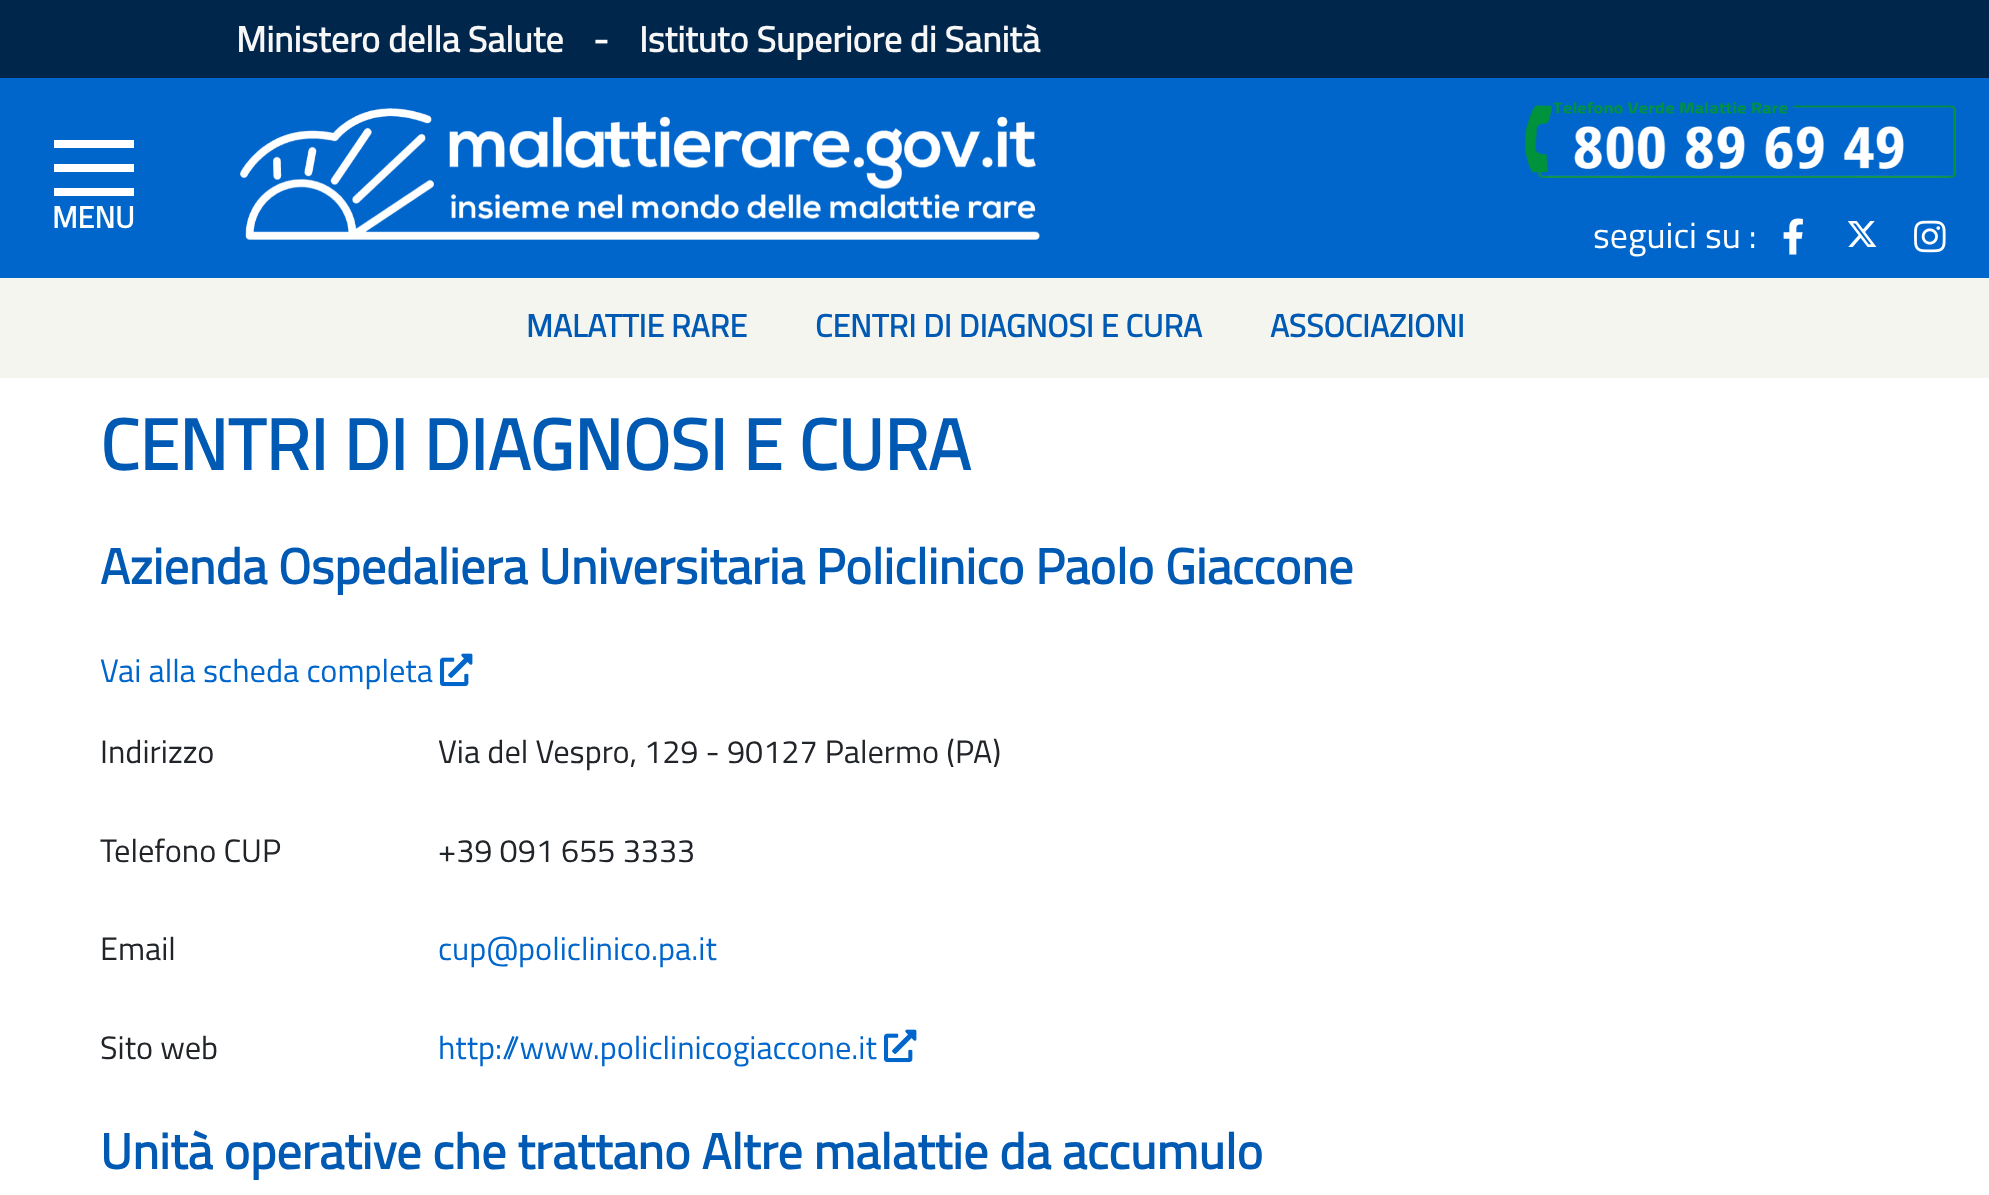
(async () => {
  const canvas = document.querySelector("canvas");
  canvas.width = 1989;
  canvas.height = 1195;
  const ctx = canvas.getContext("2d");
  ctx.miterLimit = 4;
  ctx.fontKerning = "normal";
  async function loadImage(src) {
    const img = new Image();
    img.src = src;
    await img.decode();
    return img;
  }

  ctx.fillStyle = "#ffffff";
  ctx.fillRect(0, 0, 1989, 1195);
  for (const [x, y, w, h, color] of [
    [0, 0, 1989, 78, "#00264c"],
    [0, 78, 1989, 200, "#0066cc"],
    [54, 140, 80, 8, "#ffffff"],
    [54, 164, 80, 8, "#ffffff"],
    [54, 188, 80, 8, "#ffffff"],
  ]) {
    ctx.fillStyle = color;
    ctx.fillRect(x, y, w, h);
  }
  ctx.drawImage(await loadImage("img/1.png"), 240, 108, 800, 132);
  ctx.drawImage(await loadImage("img/2.png"), 1524, 101, 433, 77);
  ctx.drawImage(await loadImage("img/3.png"), 1783, 218, 20, 37);
  ctx.drawImage(await loadImage("img/4.png"), 1847, 221, 30, 26);
  ctx.drawImage(await loadImage("img/5.png"), 1914, 220, 32, 33);
  ctx.fillStyle = "#f5f5f0";
  ctx.fillRect(0, 278, 1989, 100);
  ctx.drawImage(await loadImage("img/6.png"), 440, 653, 33, 34);
  ctx.drawImage(await loadImage("img/6.png"), 884, 1029, 33, 34);
  ctx.font = "bold 36px Titillium Web";
  ctx.fillStyle = "#f7f7f7";
  ctx.fillText("Ministero della Salute", 236, 52);
  ctx.fillStyle = "#ffffff";
  ctx.fillText("-", 593, 52);
  ctx.fillStyle = "#f7f7f7";
  ctx.fillText("Istituto Superiore di Sanità", 639, 52);
  ctx.font = "bold 30.5px Titillium Web";
  ctx.fillStyle = "#ffffff";
  ctx.fillText("MENU", 52, 228);
  ctx.font = "36px Titillium Web";
  ctx.fillText("seguici su :", 1593, 248);
  ctx.font = "bold 32px Titillium Web";
  ctx.fillStyle = "#0059b3";
  for (const [text, x, y] of [
    ["MALATTIE RARE", 526, 337],
    ["CENTRI DI DIAGNOSI E CURA", 815, 337],
    ["ASSOCIAZIONI", 1270, 337],
  ]) {
    ctx.fillText(text, x, y);
  }
  ctx.font = "bold 72px Titillium Web";
  ctx.fillText("CENTRI DI DIAGNOSI E CURA", 100, 470);
  ctx.font = "bold 50px Titillium Web";
  ctx.fillText("Azienda Ospedaliera Universitaria Policlinico Paolo Giaccone", 100, 584);
  ctx.font = "32.4px Titillium Web";
  ctx.fillStyle = "#0066cc";
  ctx.fillText("Vai alla scheda completa", 100, 682);
  ctx.fillStyle = "#212529";
  for (const [text, x, y] of [
    ["Indirizzo", 100, 763],
    ["Via del Vespro, 129 - 90127 Palermo (PA)", 438, 763],
    ["Telefono CUP", 100, 862],
    ["+39 091 655 3333", 438, 862],
    ["Email", 100, 960],
  ]) {
    ctx.fillText(text, x, y);
  }
  ctx.fillStyle = "#0066cc";
  ctx.fillText("cup@policlinico.pa.it", 438, 960);
  ctx.fillStyle = "#212529";
  ctx.fillText("Sito web", 100, 1059);
  ctx.fillStyle = "#0066cc";
  ctx.fillText("http://www.policlinicogiaccone.it", 438, 1059);
  ctx.font = "bold 50px Titillium Web";
  ctx.fillStyle = "#0059b3";
  ctx.fillText("Unità operative che trattano Altre malattie da accumulo", 100, 1169);
})();
